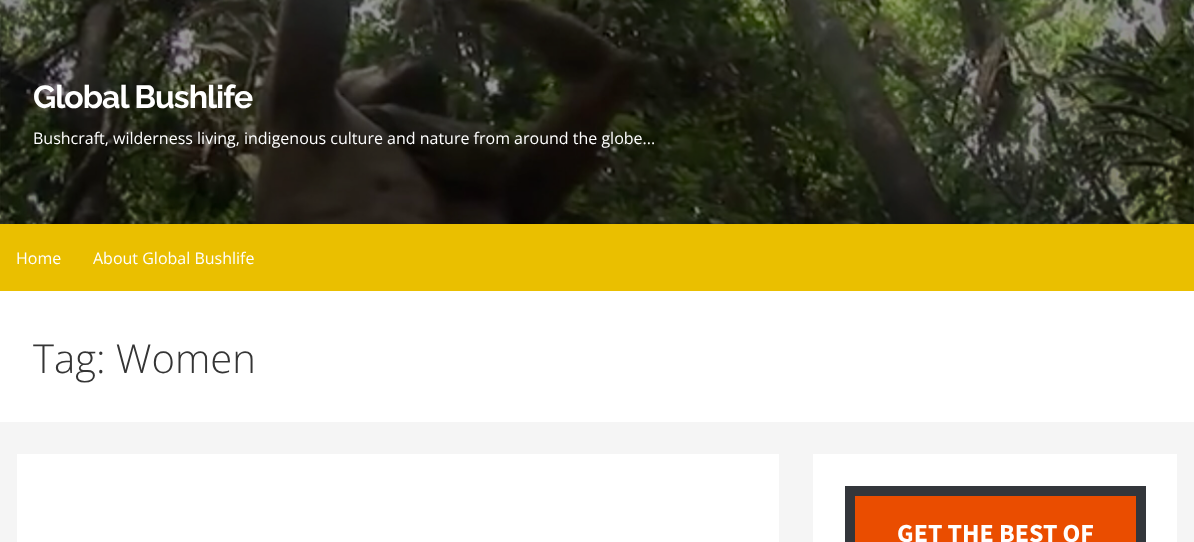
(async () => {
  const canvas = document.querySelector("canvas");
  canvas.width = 1194;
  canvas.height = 542;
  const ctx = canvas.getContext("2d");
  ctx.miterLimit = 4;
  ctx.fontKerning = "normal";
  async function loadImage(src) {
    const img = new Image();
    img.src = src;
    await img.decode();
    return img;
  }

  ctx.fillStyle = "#f5f5f5";
  ctx.fillRect(0, 0, 1194, 542);
  ctx.drawImage(await loadImage("img/1.png"), 0, 0, 1194, 224);
  for (const [x, y, w, h, color] of [
    [0, 224, 1194, 67, "#eabf00"],
    [0, 291, 1194, 131, "#ffffff"],
    [17, 454, 762, 88, "#ffffff"],
    [813, 454, 364, 88, "#ffffff"],
  ]) {
    ctx.fillStyle = color;
    ctx.fillRect(x, y, w, h);
  }
  ctx.drawImage(await loadImage("img/2.png"), 845, 486, 301, 56);
  ctx.letterSpacing = "-1px";
  ctx.font = "bold 32px Raleway";
  ctx.fillText("Global Bushlife", 33, 108);
  ctx.letterSpacing = "0px";
  ctx.font = "16px Open Sans";
  for (const [text, x, y] of [
    ["Bushcraft, wilderness living, indigenous culture and nature from around the globe...", 33, 144],
    ["Home", 16, 264],
    ["About Global Bushlife", 93, 264],
  ]) {
    ctx.fillText(text, x, y);
  }
  ctx.font = "300 40px Open Sans";
  ctx.fillStyle = "#353535";
  ctx.fillText("Tag: Women", 33, 373);
})();
